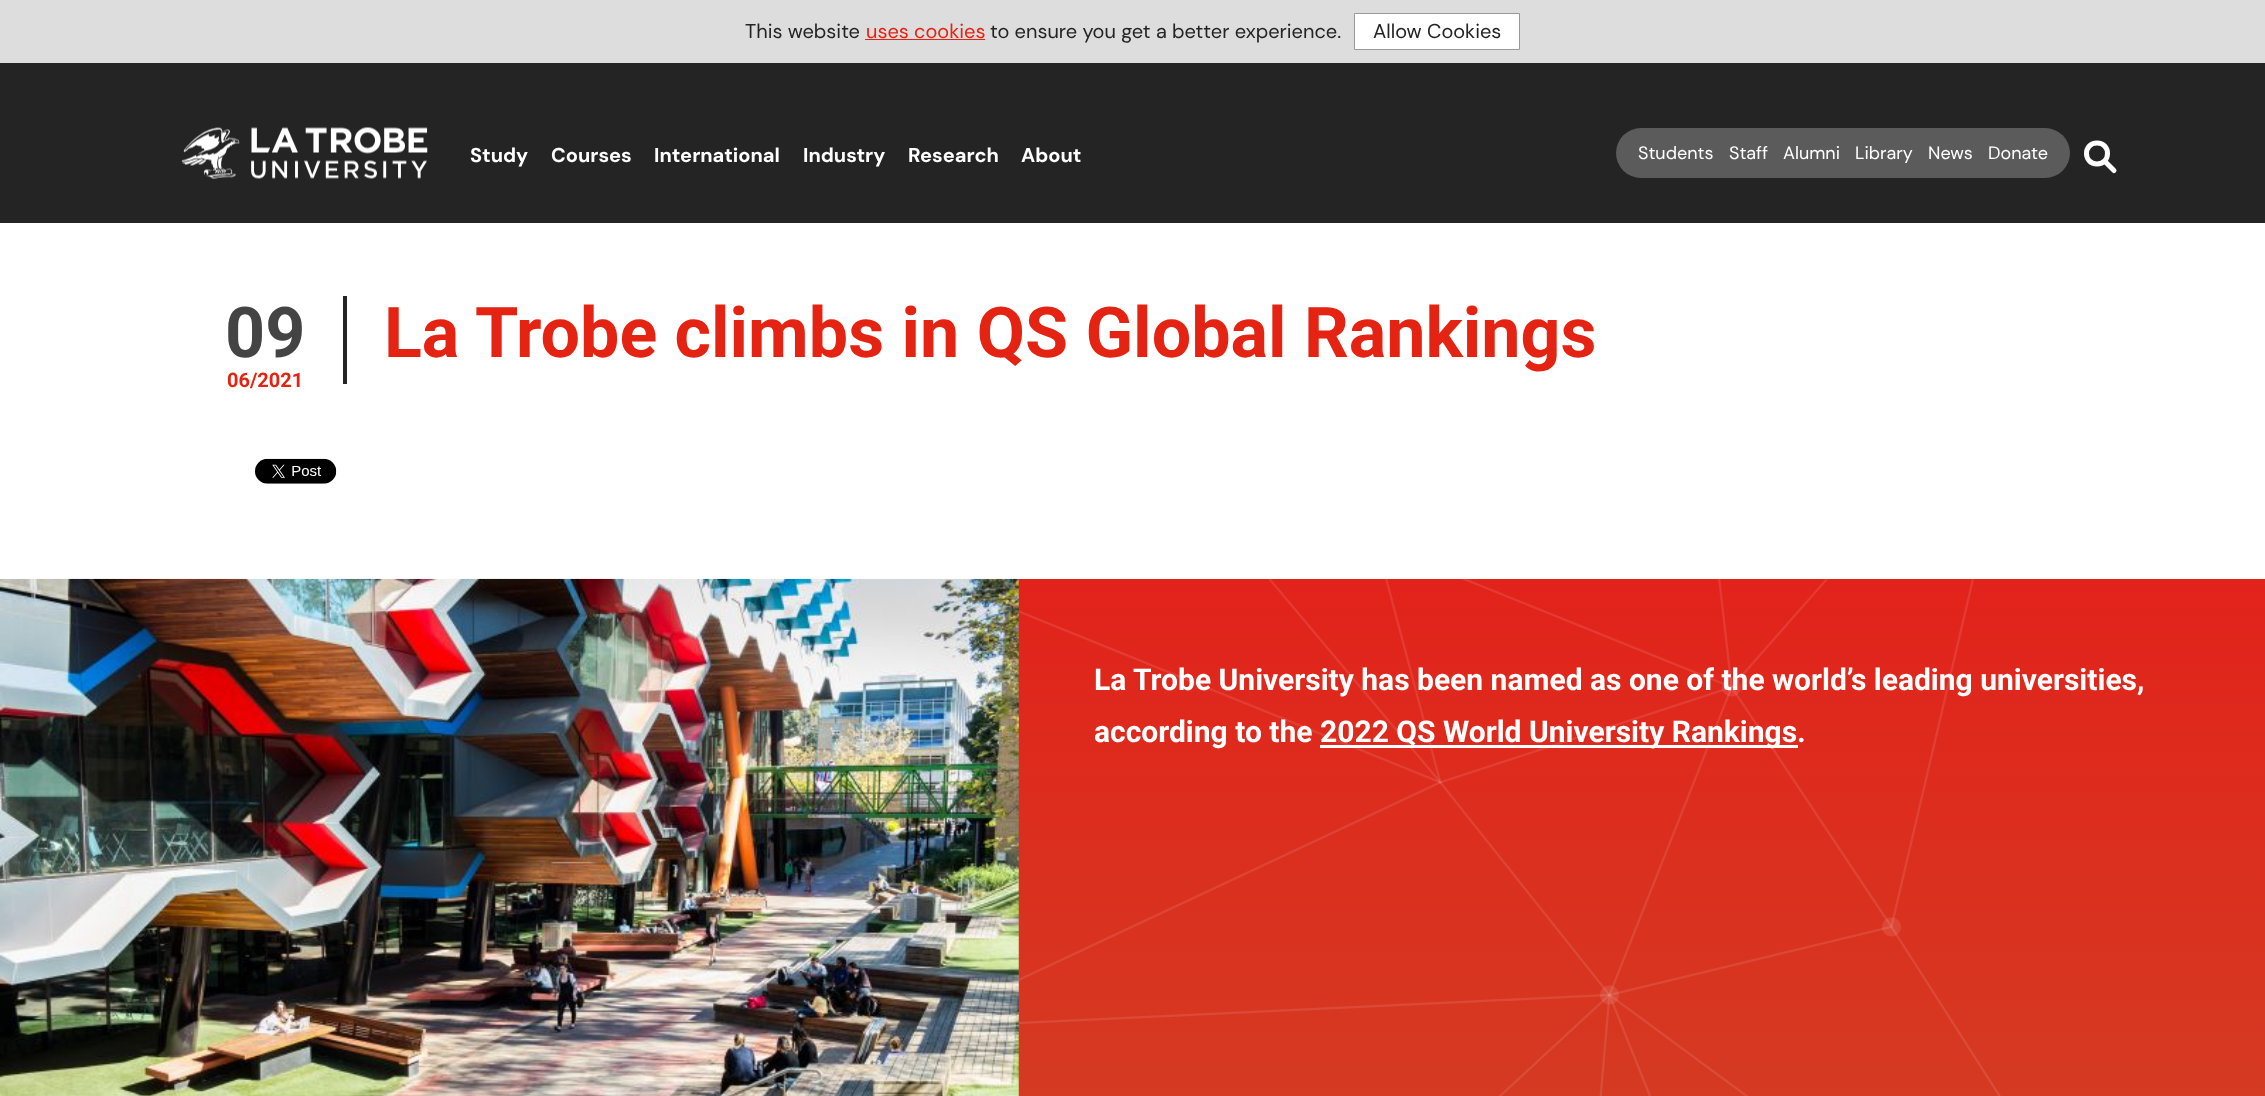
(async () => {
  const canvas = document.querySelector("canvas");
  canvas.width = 2265;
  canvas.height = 1096;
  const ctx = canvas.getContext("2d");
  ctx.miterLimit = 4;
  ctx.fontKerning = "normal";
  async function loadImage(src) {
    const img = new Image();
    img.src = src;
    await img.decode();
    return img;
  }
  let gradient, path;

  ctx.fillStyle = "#ffffff";
  ctx.fillRect(0, 0, 2265, 1096);
  ctx.fillStyle = "#dddddd";
  ctx.fillRect(0, 0, 2265, 63);
  ctx.fillStyle = "#e42312";
  ctx.fillRect(865, 39, 120, 1);
  ctx.fillStyle = "#ffffff";
  ctx.beginPath();
  ctx.rect(1354.5, 13.5, 165, 36);
  ctx.fill();
  ctx.strokeStyle = "#999999";
  ctx.stroke();
  ctx.fillStyle = "#242424";
  ctx.fillRect(0, 63, 2265, 160);
  ctx.drawImage(await loadImage("img/1.png"), 181, 127, 247, 52);
  ctx.fillStyle = "#5b5b5b";
  ctx.beginPath();
  ctx.roundRect(1616, 128, 105, 50, [25, 0, 0, 25]);
  ctx.fill();
  ctx.fillRect(1721, 128, 259, 50);
  ctx.beginPath();
  ctx.roundRect(1980, 128, 90, 50, [0, 25, 25, 0]);
  ctx.fill();
  path = new Path2D("M2097 164C2111 164 2111 143 2097 143C2083 143 2083 164 2097 164ZM2114 170.5L2105 161.5");
  ctx.strokeStyle = "#ffffff";
  ctx.lineWidth = 5;
  ctx.lineCap = "round";
  ctx.lineJoin = "round";
  ctx.stroke(path);
  ctx.fillStyle = "#242424";
  ctx.fillRect(343, 296, 4, 88);
  ctx.drawImage(await loadImage("img/2.png"), 255, 458, 82, 26);
  gradient = ctx.createLinearGradient(1133, 579, 1133, 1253);
  gradient.addColorStop(0.01, "#e2231b");
  gradient.addColorStop(1, "#d14124");
  ctx.fillStyle = gradient;
  ctx.fillRect(1018, 579, 1247, 517);
  ctx.drawImage(await loadImage("img/3.png"), 1018, 579, 983, 517);
  ctx.drawImage(await loadImage("img/4.png"), 0, 578, 1019, 518);
  ctx.fillStyle = "#ffffff";
  ctx.fillRect(1320, 745, 478, 3);
  ctx.font = "20px DM Sans";
  ctx.fillStyle = "#242424";
  ctx.fillText("This website", 745, 38);
  ctx.fillStyle = "#e42312";
  ctx.fillText("uses cookies", 866, 38);
  ctx.fillStyle = "#242424";
  ctx.fillText("to ensure you get a better experience.", 990, 38);
  ctx.fillText("Allow Cookies", 1373, 38);
  ctx.font = "bold 20px DM Sans";
  ctx.fillStyle = "#ffffff";
  for (const [text, x, y] of [
    ["Study", 470, 162],
    ["Courses", 551, 162],
    ["International", 654, 162],
    ["Industry", 803, 162],
    ["Research", 908, 162],
    ["About", 1021, 162],
  ]) {
    ctx.fillText(text, x, y);
  }
  ctx.font = "18px DM Sans";
  for (const [text, x, y] of [
    ["Students", 1638, 159],
    ["Staff", 1729, 159],
    ["Alumni", 1783, 159],
    ["Library", 1855, 159],
    ["News", 1928, 159],
    ["Donate", 1988, 159],
  ]) {
    ctx.fillText(text, x, y);
  }
  ctx.font = "bold 70px Roboto";
  ctx.fillStyle = "#444444";
  ctx.fillText("09", 225, 357);
  ctx.font = "bold 20px Roboto";
  ctx.fillStyle = "#e42312";
  ctx.fillText("06/2021", 227, 387);
  ctx.font = "bold 70px Roboto";
  ctx.fillText("La Trobe climbs in QS Global Rankings", 384, 357);
  ctx.font = "bold 30px Roboto";
  ctx.fillStyle = "#ffffff";
  for (const [text, x, y] of [
    ["La Trobe University has been named as one of the world’s leading universities,", 1094, 690],
    ["according to the", 1094, 742],
    ["2022 QS World University Rankings.", 1320, 742],
  ]) {
    ctx.fillText(text, x, y);
  }
})();
